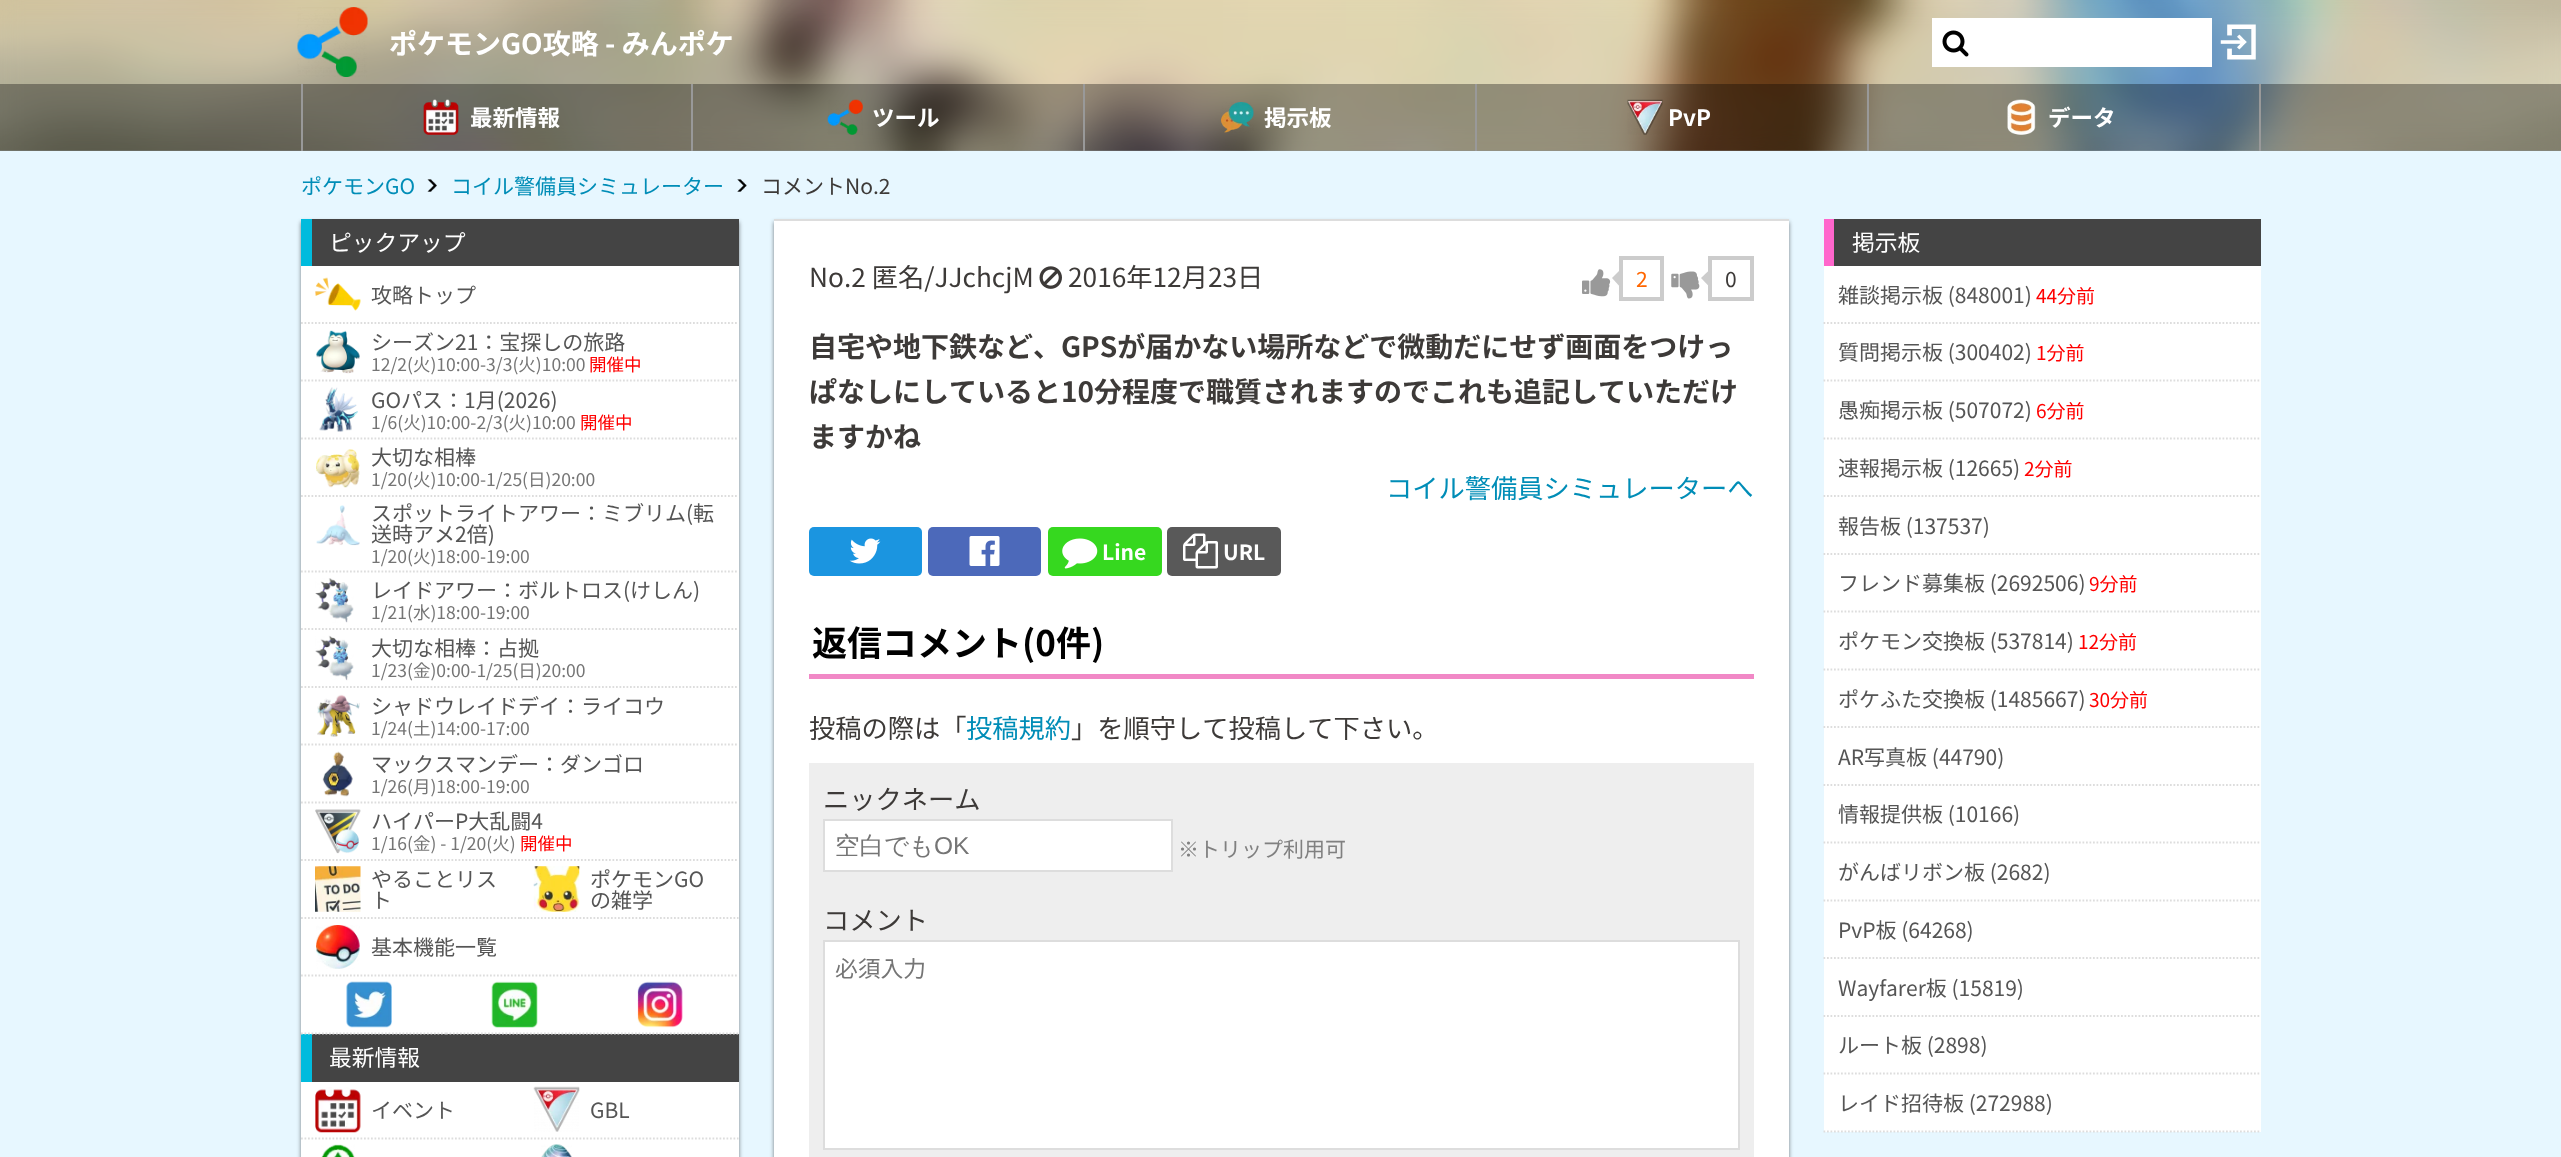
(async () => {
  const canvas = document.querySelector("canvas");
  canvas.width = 2561;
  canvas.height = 1157;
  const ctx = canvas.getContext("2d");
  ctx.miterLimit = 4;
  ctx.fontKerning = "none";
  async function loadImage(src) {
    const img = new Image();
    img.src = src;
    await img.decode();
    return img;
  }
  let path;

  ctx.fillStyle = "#e7f7ff";
  ctx.fillRect(0, 0, 2561, 1157);
  ctx.drawImage(await loadImage("img/1.png"), 0, 0, 2561, 151);
  ctx.drawImage(await loadImage("img/2.png"), 0, 0, 2561, 151);
  ctx.fillStyle = "rgba(0, 0, 0, 0.1)";
  ctx.fillRect(0, 0, 2561, 84);
  ctx.drawImage(await loadImage("img/3.png"), 297, 7, 71, 70);
  ctx.fillStyle = "#ffffff";
  ctx.fillRect(1932, 18, 280, 49);
  ctx.drawImage(await loadImage("img/4.png"), 1942, 30, 27, 27);
  ctx.drawImage(await loadImage("img/5.png"), 2220, 24, 36, 36);
  for (const [x, y, w, h, color] of [
    [0, 84, 2561, 67, "rgba(0, 0, 0, 0.4)"],
    [691, 84, 2, 67, "#999999"],
    [301, 84, 2, 67, "#999999"],
  ]) {
    ctx.fillStyle = color;
    ctx.fillRect(x, y, w, h);
  }
  ctx.drawImage(await loadImage("img/6.png"), 423, 99, 36, 36);
  ctx.fillRect(1083, 84, 2, 67);
  ctx.drawImage(await loadImage("img/7.png"), 827, 99, 36, 36);
  ctx.fillRect(1475, 84, 2, 67);
  ctx.drawImage(await loadImage("img/8.png"), 1221, 102, 33, 31);
  ctx.fillRect(1867, 84, 2, 67);
  ctx.drawImage(await loadImage("img/9.png"), 1627, 99, 36, 36);
  ctx.fillRect(2259, 84, 2, 67);
  ctx.drawImage(await loadImage("img/10.png"), 2007, 99, 29, 36);
  ctx.drawImage(await loadImage("img/11.png"), 427, 179, 10, 13);
  ctx.drawImage(await loadImage("img/12.png"), 737, 179, 10, 13);
  ctx.fillStyle = "rgba(0, 0, 0, 0.5)";
  ctx.filter = "blur(2px)";
  ctx.beginPath();
  ctx.rect(301, 222, 438, 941);
  ctx.fill();
  ctx.filter = "none";
  for (const [x, y, w, h, color] of [
    [301, 266, 438, 891, "#ffffff"],
    [312, 219, 427, 47, "#444444"],
    [301, 219, 11, 47, "#00bbdd"],
  ]) {
    ctx.fillStyle = color;
    ctx.fillRect(x, y, w, h);
  }
  path = new Path2D("M301 323H738.5");
  ctx.strokeStyle = "#dddddd";
  ctx.lineWidth = 1.8;
  ctx.setLineDash([1.75, 1.75]);
  ctx.stroke(path);
  ctx.drawImage(await loadImage("img/13.png"), 315, 277, 46, 34);
  path = new Path2D("M301 380.5H738.5");
  ctx.stroke(path);
  ctx.drawImage(await loadImage("img/14.png"), 316, 330, 44, 44);
  path = new Path2D("M301 438.5H738.5");
  ctx.stroke(path);
  ctx.drawImage(await loadImage("img/15.png"), 319, 387, 39, 45);
  path = new Path2D("M301 496H738.5");
  ctx.stroke(path);
  ctx.drawImage(await loadImage("img/16.png"), 316, 449, 44, 39);
  path = new Path2D("M301 571.5H738.5");
  ctx.stroke(path);
  ctx.drawImage(await loadImage("img/17.png"), 316, 505, 44, 41);
  path = new Path2D("M301 629H738.5");
  ctx.stroke(path);
  ctx.drawImage(await loadImage("img/18.png"), 315, 578, 39, 45);
  path = new Path2D("M301 687H738.5");
  ctx.stroke(path);
  ctx.drawImage(await loadImage("img/19.png"), 315, 635, 39, 46);
  path = new Path2D("M301 744.5H738.5");
  ctx.stroke(path);
  ctx.drawImage(await loadImage("img/20.png"), 317, 694, 43, 43);
  path = new Path2D("M301 802.5H738.5");
  ctx.stroke(path);
  ctx.drawImage(await loadImage("img/21.png"), 322, 751, 31, 46);
  path = new Path2D("M301 860H738.5");
  ctx.stroke(path);
  ctx.drawImage(await loadImage("img/22.png"), 315, 809, 46, 45);
  path = new Path2D("M301 918H520");
  ctx.stroke(path);
  ctx.drawImage(await loadImage("img/23.png"), 315, 866, 46, 46);
  path = new Path2D("M520 918H738.5");
  ctx.stroke(path);
  ctx.drawImage(await loadImage("img/24.png"), 533, 866, 47, 46);
  path = new Path2D("M301 975.5H738.5");
  ctx.stroke(path);
  ctx.drawImage(await loadImage("img/25.png"), 316, 925, 44, 44);
  ctx.fillStyle = "#444444";
  ctx.fillRect(312, 1034, 427, 48);
  ctx.fillStyle = "#00bbdd";
  ctx.fillRect(301, 1034, 11, 48);
  path = new Path2D("M301 1033.5H446");
  ctx.stroke(path);
  ctx.drawImage(await loadImage("img/26.png"), 346, 981, 46, 47);
  path = new Path2D("M446 1033.5H593");
  ctx.stroke(path);
  ctx.drawImage(await loadImage("img/27.png"), 491, 981, 47, 47);
  path = new Path2D("M593 1033.5H738.5");
  ctx.stroke(path);
  ctx.drawImage(await loadImage("img/28.png"), 637, 981, 46, 47);
  path = new Path2D("M301 1138.5H520");
  ctx.stroke(path);
  ctx.drawImage(await loadImage("img/29.png"), 315, 1087, 46, 46);
  path = new Path2D("M520 1138.5H738.5");
  ctx.stroke(path);
  ctx.drawImage(await loadImage("img/30.png"), 533, 1086, 47, 46);
  ctx.drawImage(await loadImage("img/31.png"), 321, 1144, 34, 13);
  ctx.drawImage(await loadImage("img/32.png"), 541, 1144, 31, 13);
  ctx.fillStyle = "rgba(0, 0, 0, 0.5)";
  ctx.filter = "blur(2px)";
  ctx.beginPath();
  ctx.rect(774, 222, 1015, 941);
  ctx.fill();
  ctx.filter = "none";
  ctx.fillStyle = "#ffffff";
  ctx.fillRect(774, 221, 1015, 936);
  ctx.fillStyle = "#dddddd";
  ctx.fillRect(774, 219, 1015, 2);
  ctx.drawImage(await loadImage("img/33.png"), 1039, 266, 23, 23);
  ctx.drawImage(await loadImage("img/34.png"), 1582, 269, 29, 28);
  ctx.strokeStyle = "#cccccc";
  ctx.lineWidth = 4;
  ctx.setLineDash([]);
  ctx.strokeRect(1621, 258, 41, 41);
  ctx.fillStyle = "#cccccc";
  path = new Path2D("M1622 268V289L1612 278Z");
  ctx.fill(path);
  ctx.drawImage(await loadImage("img/35.png"), 1671, 271, 29, 28);
  ctx.strokeRect(1710, 258, 42, 41);
  path = new Path2D("M1711.5 268V289L1701 278Z");
  ctx.fill(path);
  ctx.fillStyle = "#1b95e0";
  ctx.beginPath();
  ctx.roundRect(809, 527, 113, 49, 5);
  ctx.fill();
  ctx.drawImage(await loadImage("img/36.png"), 849, 538, 32, 26);
  ctx.fillStyle = "#4c69ba";
  ctx.beginPath();
  ctx.roundRect(928, 527, 113, 49, 5);
  ctx.fill();
  ctx.drawImage(await loadImage("img/37.png"), 969, 536, 31, 30);
  ctx.fillStyle = "#36d81f";
  ctx.beginPath();
  ctx.roundRect(1048, 527, 114, 49, 5);
  ctx.fill();
  ctx.drawImage(await loadImage("img/38.png"), 1062, 538, 36, 31);
  ctx.fillStyle = "#595959";
  ctx.beginPath();
  ctx.roundRect(1167, 527, 114, 49, 5);
  ctx.fill();
  ctx.drawImage(await loadImage("img/39.png"), 1183, 533, 35, 36);
  ctx.fillStyle = "#f188c6";
  ctx.fillRect(809, 674, 945, 5);
  ctx.fillStyle = "#eeeeee";
  ctx.fillRect(809, 763, 945, 394);
  ctx.fillStyle = "#ffffff";
  ctx.beginPath();
  ctx.rect(824, 820, 348, 51);
  ctx.fill();
  ctx.strokeStyle = "#dddddd";
  ctx.lineWidth = 2;
  ctx.stroke();
  ctx.beginPath();
  ctx.rect(824, 941, 915, 208);
  ctx.fill();
  ctx.stroke();
  for (const [x, y, w, h, color] of [
    [1824, 266, 437, 866, "#ffffff"],
    [1834, 219, 427, 47, "#444444"],
    [1824, 219, 10, 47, "#ff66cc"],
  ]) {
    ctx.fillStyle = color;
    ctx.fillRect(x, y, w, h);
  }
  path = new Path2D("M1823.5 323H2261");
  ctx.lineWidth = 1.8;
  ctx.setLineDash([1.75, 1.75]);
  ctx.stroke(path);
  path = new Path2D("M1823.5 380.5H2261");
  ctx.stroke(path);
  path = new Path2D("M1823.5 438.5H2261");
  ctx.stroke(path);
  path = new Path2D("M1823.5 496H2261");
  ctx.stroke(path);
  path = new Path2D("M1823.5 554H2261");
  ctx.stroke(path);
  path = new Path2D("M1823.5 611.5H2261");
  ctx.stroke(path);
  path = new Path2D("M1823.5 669.5H2261");
  ctx.stroke(path);
  path = new Path2D("M1823.5 727H2261");
  ctx.stroke(path);
  path = new Path2D("M1823.5 785H2261");
  ctx.stroke(path);
  path = new Path2D("M1823.5 842.5H2261");
  ctx.stroke(path);
  path = new Path2D("M1823.5 900.5H2261");
  ctx.stroke(path);
  path = new Path2D("M1823.5 958H2261");
  ctx.stroke(path);
  path = new Path2D("M1823.5 1016H2261");
  ctx.stroke(path);
  path = new Path2D("M1823.5 1073.5H2261");
  ctx.stroke(path);
  path = new Path2D("M1823.5 1131.5H2261");
  ctx.stroke(path);
  ctx.font = "bold 28px Noto Sans JP";
  ctx.fillStyle = "#ffffff";
  ctx.fillText("ポケモンGO攻略 - みんポケ", 389, 54);
  ctx.font = "bold 22.5px Noto Sans JP";
  for (const [text, x, y] of [
    ["最新情報", 470, 126],
    ["ツール", 872, 126],
    ["掲示板", 1264, 126],
    ["PvP", 1668, 126],
    ["データ", 2048, 126],
  ]) {
    ctx.fillText(text, x, y);
  }
  ctx.font = "21px Noto Sans JP";
  ctx.fillStyle = "#008db7";
  ctx.fillText("ポケモンGO", 301, 194);
  ctx.fillText("コイル警備員シミュレーター", 451, 194);
  ctx.fillStyle = "#3d3a38";
  ctx.fillText("コメントNo.2", 761, 194);
  ctx.font = "22.75px Noto Sans JP";
  ctx.fillStyle = "#ffffff";
  ctx.fillText("ピックアップ", 329, 251);
  ctx.font = "21px Noto Sans JP";
  ctx.fillStyle = "#555555";
  ctx.fillText("攻略トップ", 371, 303);
  ctx.fillText("シーズン21：宝探しの旅路", 371, 350);
  ctx.font = "17.5px Noto Sans JP";
  ctx.fillStyle = "#757575";
  ctx.fillText("12/2(火)10:00-3/3(火)10:00", 371, 371);
  ctx.fillStyle = "#ff0000";
  ctx.fillText("開催中", 589, 371);
  ctx.font = "21px Noto Sans JP";
  ctx.fillStyle = "#555555";
  ctx.fillText("GOパス：1月(2026)", 371, 408);
  ctx.font = "17.5px Noto Sans JP";
  ctx.fillStyle = "#757575";
  ctx.fillText("1/6(火)10:00-2/3(火)10:00", 371, 429);
  ctx.fillStyle = "#ff0000";
  ctx.fillText("開催中", 580, 429);
  ctx.font = "21px Noto Sans JP";
  ctx.fillStyle = "#555555";
  ctx.fillText("大切な相棒", 371, 465);
  ctx.font = "17.5px Noto Sans JP";
  ctx.fillStyle = "#757575";
  ctx.fillText("1/20(火)10:00-1/25(日)20:00", 371, 486);
  ctx.font = "21px Noto Sans JP";
  ctx.fillStyle = "#555555";
  ctx.fillText("スポットライトアワー：ミブリム(転", 371, 521);
  ctx.fillText("送時アメ2倍)", 371, 542);
  ctx.font = "17.5px Noto Sans JP";
  ctx.fillStyle = "#757575";
  ctx.fillText("1/20(火)18:00-19:00", 371, 563);
  ctx.font = "21px Noto Sans JP";
  ctx.fillStyle = "#555555";
  ctx.fillText("レイドアワー：ボルトロス(けしん)", 371, 598);
  ctx.font = "17.5px Noto Sans JP";
  ctx.fillStyle = "#757575";
  ctx.fillText("1/21(水)18:00-19:00", 371, 619);
  ctx.font = "21px Noto Sans JP";
  ctx.fillStyle = "#555555";
  ctx.fillText("大切な相棒：占拠", 371, 656);
  ctx.font = "17.5px Noto Sans JP";
  ctx.fillStyle = "#757575";
  ctx.fillText("1/23(金)0:00-1/25(日)20:00", 371, 677);
  ctx.font = "21px Noto Sans JP";
  ctx.fillStyle = "#555555";
  ctx.fillText("シャドウレイドデイ：ライコウ", 371, 714);
  ctx.font = "17.5px Noto Sans JP";
  ctx.fillStyle = "#757575";
  ctx.fillText("1/24(土)14:00-17:00", 371, 735);
  ctx.font = "21px Noto Sans JP";
  ctx.fillStyle = "#555555";
  ctx.fillText("マックスマンデー：ダンゴロ", 371, 772);
  ctx.font = "17.5px Noto Sans JP";
  ctx.fillStyle = "#757575";
  ctx.fillText("1/26(月)18:00-19:00", 371, 793);
  ctx.font = "21px Noto Sans JP";
  ctx.fillStyle = "#555555";
  ctx.fillText("ハイパーP大乱闘4", 371, 829);
  ctx.font = "17.5px Noto Sans JP";
  ctx.fillStyle = "#757575";
  ctx.fillText("1/16(金) - 1/20(火)", 371, 850);
  ctx.fillStyle = "#ff0000";
  ctx.fillText("開催中", 520, 850);
  ctx.font = "21px Noto Sans JP";
  ctx.fillStyle = "#555555";
  for (const [text, x, y] of [
    ["やることリス", 371, 887],
    ["ト", 371, 908],
    ["ポケモンGO", 590, 887],
    ["の雑学", 590, 908],
    ["基本機能一覧", 371, 955],
  ]) {
    ctx.fillText(text, x, y);
  }
  ctx.font = "22.75px Noto Sans JP";
  ctx.fillStyle = "#ffffff";
  ctx.fillText("最新情報", 329, 1066);
  ctx.font = "21px Noto Sans JP";
  ctx.fillStyle = "#555555";
  ctx.fillText("イベント", 371, 1118);
  ctx.fillText("GBL", 590, 1118);
  ctx.font = "26.25px Noto Sans JP";
  ctx.fillStyle = "#3d3a38";
  ctx.fillText("No.2 匿名/JJchcjM", 809, 287);
  ctx.fillText("2016年12月23日", 1068, 287);
  ctx.font = "21px Noto Sans JP";
  ctx.fillStyle = "#ff6600";
  ctx.fillText("2", 1636, 287);
  ctx.fillStyle = "#3d3a38";
  ctx.fillText("0", 1725, 287);
  ctx.font = "bold 28px Noto Sans JP";
  for (const [text, x, y] of [
    ["自宅や地下鉄など、GPSが届かない場所などで微動だにせず画面をつけっ", 809, 357],
    ["ぱなしにしていると10分程度で職質されますのでこれも追記していただけ", 809, 402],
    ["ますかね", 809, 447],
  ]) {
    ctx.fillText(text, x, y);
  }
  ctx.font = "26.25px Noto Sans JP";
  ctx.fillStyle = "#008db7";
  ctx.fillText("コイル警備員シミュレーターへ", 1386, 498);
  ctx.font = "bold 21px Noto Sans JP";
  ctx.fillStyle = "#ffffff";
  ctx.fillText("Line", 1102, 560);
  ctx.fillText("URL", 1223, 560);
  ctx.font = "bold 35px Noto Sans JP";
  ctx.fillStyle = "#000000";
  ctx.fillText("返信コメント(0件)", 812, 656);
  ctx.font = "26.25px Noto Sans JP";
  ctx.fillStyle = "#3d3a38";
  ctx.fillText("投稿の際は「", 809, 738);
  ctx.fillStyle = "#008db7";
  ctx.fillText("投稿規約", 966, 738);
  ctx.fillStyle = "#3d3a38";
  ctx.fillText("」を順守して投稿して下さい。", 1071, 738);
  ctx.fillText("ニックネーム", 823, 809);
  ctx.font = "500 24.5px WenQuanYi Zen Hei";
  ctx.fillStyle = "#757575";
  ctx.fillText("空白でも", 835, 854);
  ctx.font = "24.5px Liberation Sans";
  ctx.fillText("OK", 934, 854);
  ctx.font = "21px Noto Sans JP";
  ctx.fillStyle = "#808080";
  ctx.fillText("※トリップ利用可", 1178, 857);
  ctx.font = "26.25px Noto Sans JP";
  ctx.fillStyle = "#3d3a38";
  ctx.fillText("コメント", 823, 930);
  ctx.font = "22.75px Noto Sans JP";
  ctx.fillStyle = "#757575";
  ctx.fillText("必須入力", 835, 977);
  ctx.fillStyle = "#ffffff";
  ctx.fillText("掲示板", 1852, 251);
  ctx.font = "21px Noto Sans JP";
  ctx.fillStyle = "#555555";
  ctx.fillText("雑談掲示板 (848001)", 1838, 303);
  ctx.font = "19px Noto Sans JP";
  ctx.fillStyle = "#ff0000";
  ctx.fillText("44分前", 2036, 303);
  ctx.font = "21px Noto Sans JP";
  ctx.fillStyle = "#555555";
  ctx.fillText("質問掲示板 (300402)", 1838, 360);
  ctx.font = "19px Noto Sans JP";
  ctx.fillStyle = "#ff0000";
  ctx.fillText("1分前", 2036, 360);
  ctx.font = "21px Noto Sans JP";
  ctx.fillStyle = "#555555";
  ctx.fillText("愚痴掲示板 (507072)", 1838, 418);
  ctx.font = "19px Noto Sans JP";
  ctx.fillStyle = "#ff0000";
  ctx.fillText("6分前", 2036, 418);
  ctx.font = "21px Noto Sans JP";
  ctx.fillStyle = "#555555";
  ctx.fillText("速報掲示板 (12665)", 1838, 476);
  ctx.font = "19px Noto Sans JP";
  ctx.fillStyle = "#ff0000";
  ctx.fillText("2分前", 2024, 476);
  ctx.font = "21px Noto Sans JP";
  ctx.fillStyle = "#555555";
  ctx.fillText("報告板 (137537)", 1838, 534);
  ctx.fillText("フレンド募集板 (2692506)", 1838, 591);
  ctx.font = "19px Noto Sans JP";
  ctx.fillStyle = "#ff0000";
  ctx.fillText("9分前", 2089, 591);
  ctx.font = "21px Noto Sans JP";
  ctx.fillStyle = "#555555";
  ctx.fillText("ポケモン交換板 (537814)", 1838, 649);
  ctx.font = "19px Noto Sans JP";
  ctx.fillStyle = "#ff0000";
  ctx.fillText("12分前", 2078, 649);
  ctx.font = "21px Noto Sans JP";
  ctx.fillStyle = "#555555";
  ctx.fillText("ポケふた交換板 (1485667)", 1838, 707);
  ctx.font = "19px Noto Sans JP";
  ctx.fillStyle = "#ff0000";
  ctx.fillText("30分前", 2089, 707);
  ctx.font = "21px Noto Sans JP";
  ctx.fillStyle = "#555555";
  for (const [text, x, y] of [
    ["AR写真板 (44790)", 1838, 765],
    ["情報提供板 (10166)", 1838, 822],
    ["がんばリボン板 (2682)", 1838, 880],
    ["PvP板 (64268)", 1838, 938],
    ["Wayfarer板 (15819)", 1838, 996],
    ["ルート板 (2898)", 1838, 1053],
    ["レイド招待板 (272988)", 1838, 1111],
  ]) {
    ctx.fillText(text, x, y);
  }
})();
